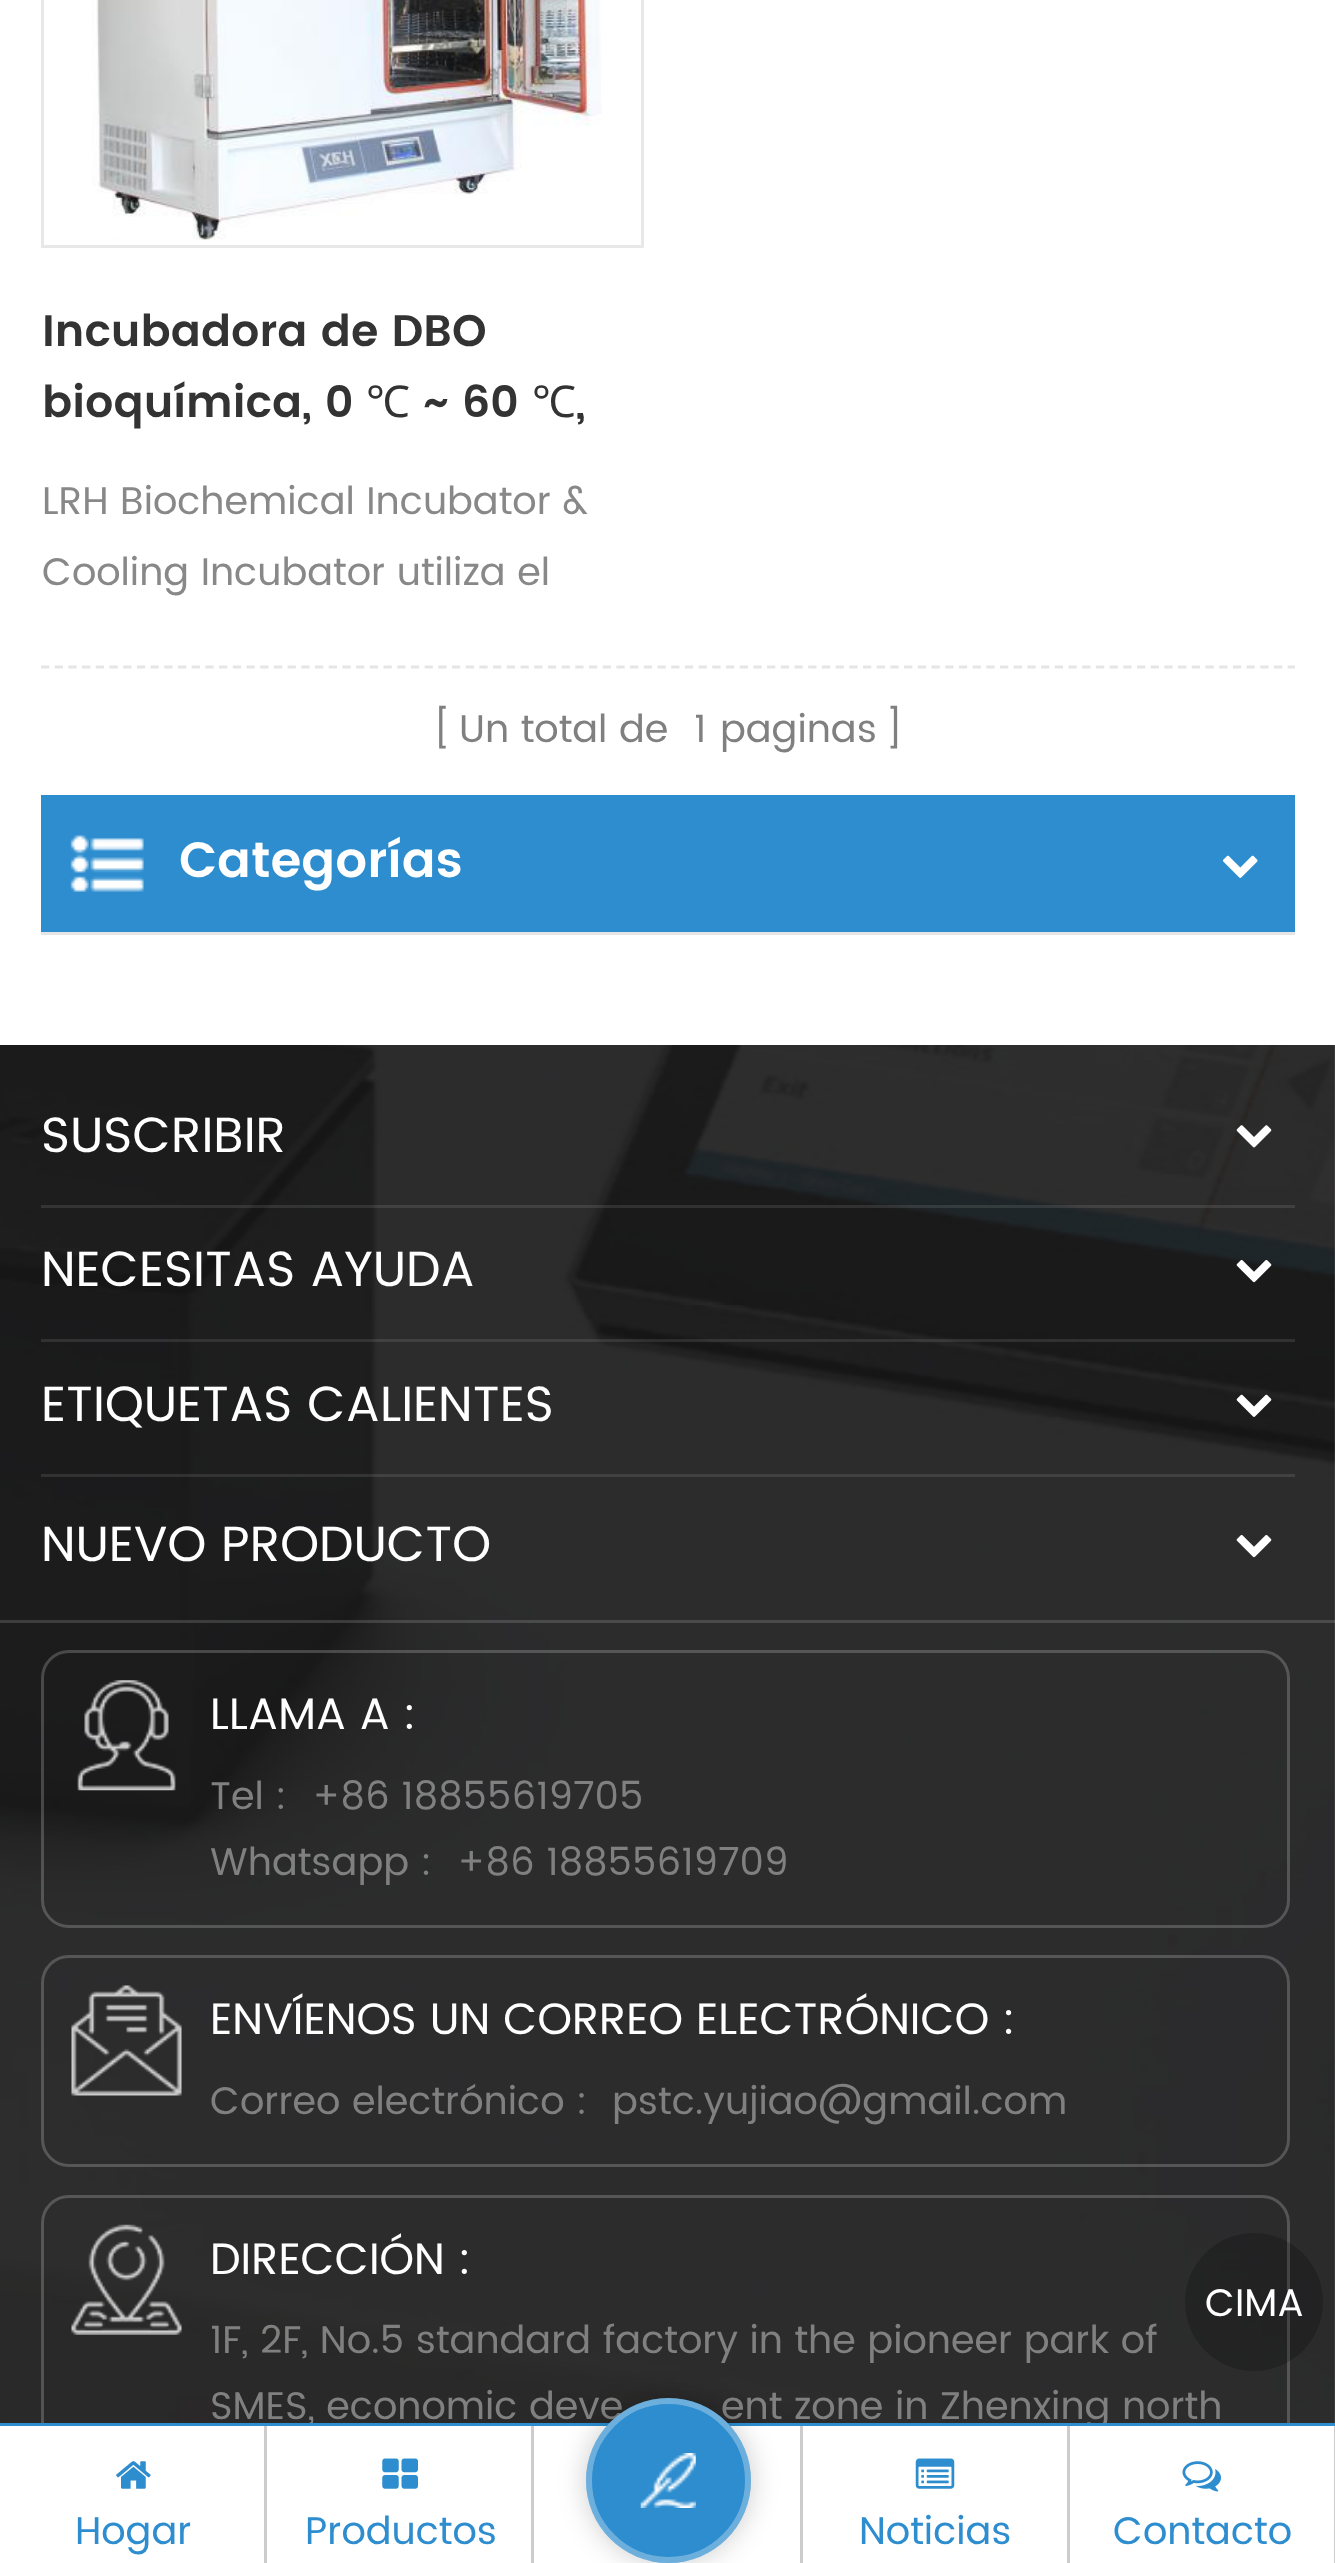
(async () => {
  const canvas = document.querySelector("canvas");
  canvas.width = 1335;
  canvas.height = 2563;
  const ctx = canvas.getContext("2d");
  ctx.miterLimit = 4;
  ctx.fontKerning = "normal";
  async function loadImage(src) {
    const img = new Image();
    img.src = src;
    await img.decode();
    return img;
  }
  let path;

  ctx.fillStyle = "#ffffff";
  ctx.fillRect(0, 0, 1335, 2563);
  ctx.strokeStyle = "#e8e8e8";
  ctx.lineWidth = 3;
  ctx.strokeRect(42.5, -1.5, 600, 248);
  ctx.drawImage(await loadImage("img/1.png"), 92, 0, 510, 240);
  path = new Path2D("M41 667H1295");
  ctx.strokeStyle = "#e5e5e5";
  ctx.lineWidth = 2.8;
  ctx.setLineDash([8.25, 5.45]);
  ctx.stroke(path);
  ctx.fillStyle = "#2d8dcf";
  ctx.fillRect(41, 795, 1254, 137);
  ctx.fillStyle = "#e5e5e5";
  ctx.fillRect(41, 932, 1254, 3);
  ctx.drawImage(await loadImage("img/2.png"), 70, 835, 74, 57);
  ctx.drawImage(await loadImage("img/3.png"), 1222, 855, 36, 23);
  ctx.drawImage(await loadImage("img/4.png"), 0, 1045, 1335, 1378);
  ctx.fillStyle = "rgba(255, 255, 255, 0.15)";
  ctx.fillRect(0, 1620, 1335, 3);
  ctx.fillStyle = "rgba(255, 255, 255, 0.1)";
  ctx.fillRect(41, 1205, 1254, 3);
  ctx.drawImage(await loadImage("img/5.png"), 1236, 1125, 36, 23);
  ctx.fillRect(41, 1339, 1254, 3);
  ctx.drawImage(await loadImage("img/6.png"), 1236, 1260, 36, 23);
  ctx.fillRect(41, 1474, 1254, 3);
  ctx.drawImage(await loadImage("img/7.png"), 1236, 1394, 36, 23);
  ctx.drawImage(await loadImage("img/8.png"), 1236, 1535, 36, 23);
  ctx.beginPath();
  ctx.roundRect(42.5, 1651.5, 1246, 275, 26.5);
  ctx.strokeStyle = "rgba(255, 255, 255, 0.2)";
  ctx.lineWidth = 3;
  ctx.setLineDash([]);
  ctx.stroke();
  ctx.drawImage(await loadImage("img/9.png"), 77, 1680, 99, 111);
  ctx.beginPath();
  ctx.roundRect(42.5, 1956.5, 1246, 209, 26.5);
  ctx.stroke();
  ctx.drawImage(await loadImage("img/10.png"), 71, 1985, 111, 111);
  ctx.beginPath();
  ctx.roundRect(42.5, 2196.5, 1246, 340, 26.5);
  ctx.stroke();
  ctx.drawImage(await loadImage("img/11.png"), 71, 2224, 111, 111);
  ctx.fillStyle = "rgba(0, 0, 0, 0.2)";
  ctx.beginPath();
  ctx.arc(1254, 2302, 69, 0, Math.PI * 2);
  ctx.fill();
  ctx.fillStyle = "#cccccc";
  ctx.fillRect(264, 2426, 3, 137);
  ctx.drawImage(await loadImage("img/13.png"), 116, 2461, 35, 28);
  ctx.fillRect(531, 2426, 3, 137);
  ctx.drawImage(await loadImage("img/14.png"), 382, 2458, 36, 31);
  ctx.drawImage(await loadImage("img/15.png"), 915, 2458, 40, 31);
  ctx.fillRect(1334, 2426, 1, 137);
  ctx.drawImage(await loadImage("img/16.png"), 1182, 2461, 39, 31);
  ctx.font = "600 44px Poppins";
  ctx.fillStyle = "#333333";
  ctx.fillText("Incubadora de DBO", 42, 346);
  ctx.fillText("bioquímica, 0", 42, 417);
  ctx.font = "44px Noto Sans";
  ctx.fillText("℃", 366, 417);
  ctx.font = "600 44px Poppins";
  ctx.fillText("~ 60", 423, 417);
  ctx.font = "44px Noto Sans";
  ctx.fillText("℃", 532, 417);
  ctx.font = "600 44px Poppins";
  ctx.fillText(",", 576, 417);
  ctx.font = "38.5px Poppins";
  ctx.fillStyle = "#888888";
  ctx.fillText("LRH Biochemical Incubator &", 42, 514);
  ctx.fillText("Cooling Incubator utiliza el", 42, 585);
  ctx.fillStyle = "#808080";
  for (const [text, x, y] of [
    ["[", 433, 742],
    ["Un total de", 459, 742],
    ["1", 694, 742],
    ["paginas", 720, 742],
    ["]", 885, 742],
  ]) {
    ctx.fillText(text, x, y);
  }
  ctx.font = "600 49.5px Poppins";
  ctx.fillStyle = "#ffffff";
  ctx.fillText("Categorías", 179, 877);
  ctx.font = "49.5px Poppins";
  for (const [text, x, y] of [
    ["SUSCRIBIR", 41, 1152],
    ["NECESITAS AYUDA", 41, 1286],
    ["ETIQUETAS CALIENTES", 41, 1421],
    ["NUEVO PRODUCTO", 41, 1561],
  ]) {
    ctx.fillText(text, x, y);
  }
  ctx.font = "44px Poppins";
  ctx.fillText("LLAMA A :", 210, 1729);
  ctx.font = "38.5px Poppins";
  ctx.fillStyle = "#808080";
  for (const [text, x, y] of [
    ["Tel :", 210, 1809],
    ["+86 18855619705", 312, 1809],
    ["Whatsapp :", 210, 1875],
    ["+86 18855619709", 457, 1875],
  ]) {
    ctx.fillText(text, x, y);
  }
  ctx.font = "44px Poppins";
  ctx.fillStyle = "#ffffff";
  ctx.fillText("ENVÍENOS UN CORREO ELECTRÓNICO :", 210, 2034);
  ctx.font = "38.5px Poppins";
  ctx.fillStyle = "#808080";
  ctx.fillText("Correo electrónico :", 210, 2114);
  ctx.fillText("pstc.yujiao@gmail.com", 612, 2114);
  ctx.font = "44px Poppins";
  ctx.fillStyle = "#ffffff";
  ctx.fillText("DIRECCIÓN :", 210, 2274);
  ctx.font = "38.5px Poppins";
  ctx.fillStyle = "#808080";
  for (const [text, x, y] of [
    ["1F, 2F, No.5 standard factory in the pioneer park of", 210, 2353],
    ["SMES, economic deve", 210, 2419],
    ["ent zone in Zhenxing north", 721, 2419],
  ]) {
    ctx.fillText(text, x, y);
  }
  ctx.fillStyle = "#ffffff";
  ctx.fillText("CIMA", 1205, 2316);
  ctx.fillStyle = "#2d8dcf";
  ctx.fillRect(0, 2423, 1335, 3);
  ctx.fillStyle = "rgba(0, 0, 0, 0.2)";
  ctx.filter = "blur(14px)";
  ctx.beginPath();
  ctx.roundRect(586, 2398, 165, 165, 82.5);
  ctx.fill();
  ctx.filter = "none";
  ctx.fillStyle = "#2d8dcf";
  ctx.beginPath();
  ctx.arc(668.5, 2480.5, 82.5, 0, Math.PI * 2);
  ctx.fill();
  ctx.beginPath();
  ctx.arc(668.5, 2480.5, 79.5, 0, Math.PI * 2);
  ctx.strokeStyle = "rgba(255, 255, 255, 0.3)";
  ctx.lineWidth = 6;
  ctx.stroke();
  ctx.drawImage(await loadImage("img/12.png"), 640, 2453, 56, 55);
  ctx.fillStyle = "#ffffff";
  ctx.fillRect(1089, 2426, 17, 4);
  ctx.fillStyle = "#2d8dcf";
  ctx.fillText("Hogar", 75, 2544);
  ctx.fillText("Productos", 305, 2544);
  ctx.fillStyle = "#cccccc";
  ctx.fillRect(800, 2426, 3, 137);
  ctx.fillRect(1067, 2426, 3, 137);
  ctx.fillStyle = "#2d8dcf";
  ctx.fillText("Noticias", 859, 2544);
  ctx.fillText("Contacto", 1113, 2544);
})();
